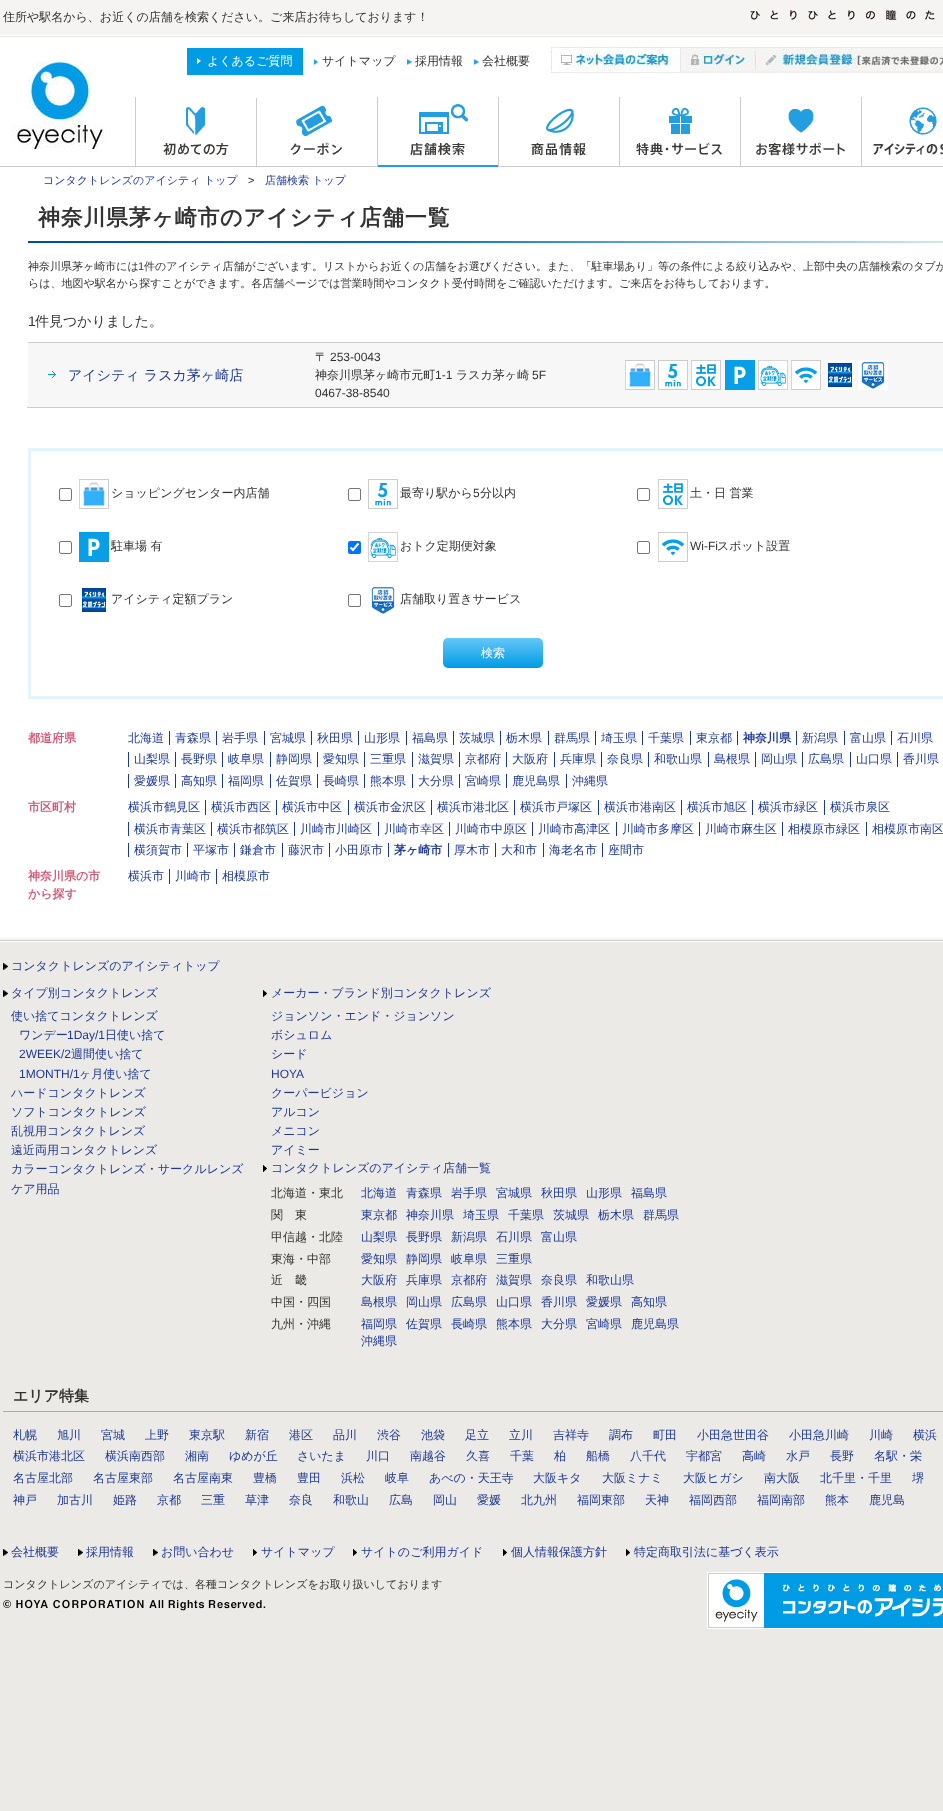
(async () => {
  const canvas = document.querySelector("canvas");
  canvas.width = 943;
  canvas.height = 1811;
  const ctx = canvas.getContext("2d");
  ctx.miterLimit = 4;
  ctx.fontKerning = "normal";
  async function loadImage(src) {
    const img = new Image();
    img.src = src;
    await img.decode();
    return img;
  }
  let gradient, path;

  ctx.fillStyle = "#eceae7";
  ctx.fillRect(0, 0, 943, 1811);
  for (const [x, y, w, h, color] of [
    [0, 37, 943, 901, "#ffffff"],
    [0, 166, 943, 1, "#cccccc"],
    [0, 0, 943, 35, "#f5f4f3"],
  ]) {
    ctx.fillStyle = color;
    ctx.fillRect(x, y, w, h);
  }
  ctx.drawImage(await loadImage("img/1.png"), 0, 35, 943, 2);
  ctx.drawImage(await loadImage("img/2.png"), 750, 10, 185, 10);
  ctx.drawImage(await loadImage("img/3.png"), 11, 61, 96, 88);
  ctx.fillStyle = "#009ce6";
  ctx.fillRect(187, 48, 116, 27);
  ctx.fillStyle = "#ffffff";
  path = new Path2D("M197 64V58L201 61Z");
  ctx.fill(path);
  ctx.drawImage(await loadImage("img/4.png"), 314, 59, 4, 6);
  ctx.drawImage(await loadImage("img/5.png"), 407, 59, 5, 6);
  ctx.drawImage(await loadImage("img/5.png"), 474, 59, 5, 6);
  ctx.drawImage(await loadImage("img/6.png"), 551, 47, 129, 26);
  ctx.drawImage(await loadImage("img/7.png"), 680, 47, 76, 26);
  ctx.drawImage(await loadImage("img/8.png"), 756, 47, 187, 26);
  ctx.drawImage(await loadImage("img/9.png"), 135, 97, 122, 69);
  ctx.drawImage(await loadImage("img/10.png"), 290, 97, 88, 69);
  ctx.drawImage(await loadImage("img/11.png"), 378, 97, 121, 70);
  ctx.drawImage(await loadImage("img/12.png"), 531, 97, 89, 69);
  ctx.drawImage(await loadImage("img/13.png"), 636, 97, 105, 69);
  ctx.drawImage(await loadImage("img/14.png"), 756, 97, 106, 69);
  ctx.drawImage(await loadImage("img/15.png"), 873, 107, 70, 48);
  gradient = ctx.createLinearGradient(28, 242, 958, 242);
  gradient.addColorStop(0, "#004aaa");
  gradient.addColorStop(0.4, "#006cc3");
  gradient.addColorStop(1, "#d1eef0");
  ctx.fillStyle = gradient;
  ctx.fillRect(28, 241, 915, 2);
  for (const [x, y, w, h, color] of [
    [28, 342, 915, 1, "#cccccc"],
    [28, 343, 915, 64, "#f7f7f7"],
    [27, 407, 916, 1, "#cccccc"],
  ]) {
    ctx.fillStyle = color;
    ctx.fillRect(x, y, w, h);
  }
  ctx.drawImage(await loadImage("img/16.png"), 48, 371, 8, 7);
  ctx.drawImage(await loadImage("img/17.png"), 625, 360, 30, 30);
  ctx.drawImage(await loadImage("img/18.png"), 658, 360, 30, 30);
  ctx.drawImage(await loadImage("img/19.png"), 691, 360, 30, 30);
  ctx.drawImage(await loadImage("img/20.png"), 725, 360, 30, 30);
  ctx.drawImage(await loadImage("img/21.png"), 758, 360, 30, 30);
  ctx.drawImage(await loadImage("img/22.png"), 791, 360, 30, 30);
  ctx.drawImage(await loadImage("img/23.png"), 825, 360, 30, 30);
  ctx.drawImage(await loadImage("img/24.png"), 858, 360, 30, 30);
  ctx.strokeStyle = "#e2f5fe";
  ctx.lineWidth = 3;
  ctx.strokeRect(29.5, 449.5, 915, 248);
  ctx.beginPath();
  ctx.roundRect(59.5, 488.5, 12, 12, 1.5);
  ctx.strokeStyle = "#767676";
  ctx.lineWidth = 1;
  ctx.stroke();
  ctx.drawImage(await loadImage("img/17.png"), 79, 479, 30, 30);
  ctx.beginPath();
  ctx.roundRect(348.5, 488.5, 12, 12, 1.5);
  ctx.stroke();
  ctx.drawImage(await loadImage("img/18.png"), 368, 479, 30, 30);
  ctx.beginPath();
  ctx.roundRect(637.5, 488.5, 12, 12, 1.5);
  ctx.stroke();
  ctx.drawImage(await loadImage("img/19.png"), 658, 479, 30, 30);
  ctx.beginPath();
  ctx.roundRect(59.5, 541.5, 12, 12, 1.5);
  ctx.stroke();
  ctx.drawImage(await loadImage("img/20.png"), 79, 532, 30, 30);
  ctx.fillStyle = "#0075ff";
  ctx.beginPath();
  ctx.roundRect(348, 541, 13, 13, 2);
  ctx.fill();
  path = new Path2D("M350.5 547.5L353 550L358.5 543.5");
  ctx.strokeStyle = "#ffffff";
  ctx.lineWidth = 2.1;
  ctx.stroke(path);
  ctx.drawImage(await loadImage("img/21.png"), 368, 532, 30, 30);
  ctx.beginPath();
  ctx.roundRect(637.5, 541.5, 12, 12, 1.5);
  ctx.strokeStyle = "#767676";
  ctx.lineWidth = 1;
  ctx.stroke();
  ctx.drawImage(await loadImage("img/22.png"), 658, 532, 30, 30);
  ctx.beginPath();
  ctx.roundRect(59.5, 594.5, 12, 12, 1.5);
  ctx.stroke();
  ctx.drawImage(await loadImage("img/25.png"), 82, 588, 24, 24);
  ctx.beginPath();
  ctx.roundRect(348.5, 594.5, 12, 12, 1.5);
  ctx.stroke();
  ctx.drawImage(await loadImage("img/26.png"), 371, 587, 24, 27);
  gradient = ctx.createLinearGradient(493, 638, 493, 668);
  gradient.addColorStop(0, "#64c7f8");
  gradient.addColorStop(1, "#019be4");
  ctx.fillStyle = gradient;
  ctx.beginPath();
  ctx.roundRect(443, 638, 100, 30, 5);
  ctx.fill();
  for (const [x, y, w, h, color] of [
    [169, 731, 1, 14, "#1d3994"],
    [216, 731, 1, 14, "#1d3994"],
    [264, 731, 1, 14, "#1d3994"],
    [311, 731, 1, 14, "#1d3994"],
    [358, 731, 1, 14, "#1d3994"],
    [406, 731, 1, 14, "#1d3994"],
    [453, 731, 1, 14, "#1d3994"],
    [500, 731, 1, 14, "#1d3994"],
    [548, 731, 1, 14, "#1d3994"],
    [595, 731, 1, 14, "#1d3994"],
    [642, 731, 1, 14, "#1d3994"],
    [690, 731, 1, 14, "#1d3994"],
    [737, 731, 1, 14, "#1d3994"],
    [796, 731, 1, 14, "#1d3994"],
    [844, 731, 1, 14, "#1d3994"],
    [891, 731, 1, 14, "#1d3994"],
    [128, 752, 1, 15, "#1d3994"],
    [175, 752, 1, 15, "#1d3994"],
    [222, 752, 1, 15, "#1d3994"],
    [270, 752, 1, 15, "#1d3994"],
    [317, 752, 1, 15, "#1d3994"],
    [364, 752, 1, 15, "#1d3994"],
    [412, 752, 1, 15, "#1d3994"],
    [459, 752, 1, 15, "#1d3994"],
    [506, 752, 1, 15, "#1d3994"],
    [554, 752, 1, 15, "#1d3994"],
    [601, 752, 1, 15, "#1d3994"],
    [648, 752, 1, 15, "#1d3994"],
    [708, 752, 1, 15, "#1d3994"],
    [755, 752, 1, 15, "#1d3994"],
    [802, 752, 1, 15, "#1d3994"],
    [850, 752, 1, 15, "#1d3994"],
    [897, 752, 1, 15, "#1d3994"],
    [128, 774, 1, 14, "#1d3994"],
    [175, 774, 1, 14, "#1d3994"],
    [222, 774, 1, 14, "#1d3994"],
    [270, 774, 1, 14, "#1d3994"],
    [317, 774, 1, 14, "#1d3994"],
    [364, 774, 1, 14, "#1d3994"],
    [412, 774, 1, 14, "#1d3994"],
    [459, 774, 1, 14, "#1d3994"],
    [506, 774, 1, 14, "#1d3994"],
    [566, 774, 1, 14, "#1d3994"],
    [205, 800, 1, 15, "#1d3994"],
    [276, 800, 1, 15, "#1d3994"],
    [348, 800, 1, 15, "#1d3994"],
    [431, 800, 1, 15, "#1d3994"],
    [514, 800, 1, 15, "#1d3994"],
    [598, 800, 1, 15, "#1d3994"],
    [681, 800, 1, 15, "#1d3994"],
    [752, 800, 1, 15, "#1d3994"],
    [824, 800, 1, 15, "#1d3994"],
    [128, 822, 1, 14, "#1d3994"],
    [211, 822, 1, 14, "#1d3994"],
    [294, 822, 1, 14, "#1d3994"],
    [378, 822, 1, 14, "#1d3994"],
    [449, 822, 1, 14, "#1d3994"],
    [532, 822, 1, 14, "#1d3994"],
    [616, 822, 1, 14, "#1d3994"],
    [699, 822, 1, 14, "#1d3994"],
    [782, 822, 1, 14, "#1d3994"],
    [866, 822, 1, 14, "#1d3994"],
    [128, 843, 1, 14, "#1d3994"],
    [187, 843, 1, 14, "#1d3994"],
    [234, 843, 1, 14, "#1d3994"],
    [282, 843, 1, 14, "#1d3994"],
    [329, 843, 1, 14, "#1d3994"],
    [388, 843, 1, 14, "#1d3994"],
    [448, 843, 1, 14, "#1d3994"],
    [495, 843, 1, 14, "#1d3994"],
    [543, 843, 1, 14, "#1d3994"],
    [602, 843, 1, 14, "#1d3994"],
    [169, 869, 1, 15, "#1d3994"],
    [216, 869, 1, 15, "#1d3994"],
  ]) {
    ctx.fillStyle = color;
    ctx.fillRect(x, y, w, h);
  }
  ctx.drawImage(await loadImage("img/27.png"), 0, 938, 943, 4);
  ctx.drawImage(await loadImage("img/28.png"), 3, 963, 5, 7);
  ctx.drawImage(await loadImage("img/28.png"), 3, 990, 5, 7);
  ctx.drawImage(await loadImage("img/29.png"), 263, 990, 4, 7);
  ctx.drawImage(await loadImage("img/29.png"), 263, 1165, 4, 7);
  ctx.fillStyle = "#adaca8";
  ctx.fillRect(3, 1411, 940, 1);
  ctx.drawImage(await loadImage("img/28.png"), 3, 1549, 5, 7);
  ctx.drawImage(await loadImage("img/28.png"), 78, 1549, 5, 7);
  ctx.drawImage(await loadImage("img/30.png"), 153, 1549, 5, 7);
  ctx.drawImage(await loadImage("img/29.png"), 253, 1549, 4, 7);
  ctx.drawImage(await loadImage("img/29.png"), 353, 1549, 4, 7);
  ctx.drawImage(await loadImage("img/29.png"), 503, 1549, 4, 7);
  ctx.drawImage(await loadImage("img/29.png"), 626, 1549, 4, 7);
  ctx.drawImage(await loadImage("img/31.png"), 707, 1572, 236, 57);
  ctx.drawImage(await loadImage("img/32.png"), 3, 1599, 263, 12);
  ctx.font = "500 12px WenQuanYi Zen Hei";
  ctx.fillStyle = "#333333";
  ctx.fillText("住所や駅名から、お近くの店舗を検索ください。ご来店お待ちしております！", 3, 21);
  ctx.fillStyle = "#ffffff";
  ctx.fillText("よくあるご質問", 207, 65);
  ctx.fillStyle = "#333333";
  for (const [text, x, y] of [
    ["サイトマップ", 322, 65],
    ["採用情報", 415, 65],
    ["会社概要", 482, 65],
  ]) {
    ctx.fillText(text, x, y);
  }
  ctx.font = "500 11px WenQuanYi Zen Hei";
  ctx.fillStyle = "#1d3994";
  ctx.fillText("コンタクトレンズのアイシティ トップ", 43, 184);
  ctx.font = "11px Liberation Sans";
  ctx.fillStyle = "#333333";
  ctx.fillText(">", 248, 184);
  ctx.font = "500 11px WenQuanYi Zen Hei";
  ctx.fillStyle = "#1d3994";
  ctx.fillText("店舗検索 トップ", 265, 184);
  ctx.letterSpacing = "0.7px";
  ctx.font = "bold 22px WenQuanYi Zen Hei";
  ctx.fillStyle = "#333333";
  ctx.fillText("神奈川県茅ヶ崎市のアイシティ店舗一覧", 38, 225);
  ctx.letterSpacing = "0px";
  ctx.font = "500 11px WenQuanYi Zen Hei";
  ctx.fillText("神奈川県茅ヶ崎市には", 28, 270);
  ctx.font = "11px Liberation Sans";
  ctx.fillText("1", 138, 270);
  ctx.font = "500 11px WenQuanYi Zen Hei";
  ctx.fillText("件のアイシティ店舗がございます。リストからお近くの店舗をお選びください。また、「駐車場あり」等の条件による絞り込みや、上部中央の店舗検索のタブか", 144, 270);
  ctx.fillText("らは、地図や駅名から探すことができます。各店舗ページでは営業時間やコンタクト受付時間をご確認いただけます。ご来店をお待ちしております。", 28, 287);
  ctx.font = "14px Liberation Sans";
  ctx.fillText("1", 28, 326);
  ctx.font = "500 14px WenQuanYi Zen Hei";
  ctx.fillText("件見つかりました。", 35, 326);
  ctx.fillStyle = "#1d3994";
  ctx.fillText("アイシティ ラスカ茅ヶ崎店", 68, 380);
  ctx.font = "500 12px WenQuanYi Zen Hei";
  ctx.fillStyle = "#333333";
  ctx.fillText("〒", 315, 361);
  ctx.font = "12px Liberation Sans";
  ctx.fillText("253-0043", 330, 361);
  ctx.font = "500 12px WenQuanYi Zen Hei";
  ctx.fillText("神奈川県茅ヶ崎市元町", 315, 379);
  ctx.font = "12px Liberation Sans";
  ctx.fillText("1-1", 435, 379);
  ctx.font = "500 12px WenQuanYi Zen Hei";
  ctx.fillText("ラスカ茅ヶ崎", 456, 379);
  ctx.font = "12px Liberation Sans";
  ctx.fillText("5F", 532, 379);
  ctx.fillText("0467-38-8540", 315, 397);
  ctx.font = "500 12px WenQuanYi Zen Hei";
  ctx.fillText("ショッピングセンター内店舗", 111, 497);
  ctx.fillText("最寄り駅から", 400, 497);
  ctx.font = "12px Liberation Sans";
  ctx.fillText("5", 473, 497);
  ctx.font = "500 12px WenQuanYi Zen Hei";
  for (const [text, x, y] of [
    ["分以内", 480, 497],
    ["土・日 営業", 690, 497],
    ["駐車場 有", 111, 550],
    ["おトク定期便対象", 400, 550],
  ]) {
    ctx.fillText(text, x, y);
  }
  ctx.font = "12px Liberation Sans";
  ctx.fillText("Wi-Fi", 690, 550);
  ctx.font = "500 12px WenQuanYi Zen Hei";
  for (const [text, x, y] of [
    ["スポット設置", 717, 550],
    ["アイシティ定額プラン", 111, 603],
    ["店舗取り置きサービス", 400, 603],
  ]) {
    ctx.fillText(text, x, y);
  }
  ctx.fillStyle = "#ffffff";
  ctx.fillText("検索", 481, 657);
  ctx.font = "bold 12px WenQuanYi Zen Hei";
  ctx.fillStyle = "#d25975";
  ctx.fillText("都道府県", 28, 742);
  ctx.font = "500 12px WenQuanYi Zen Hei";
  ctx.fillStyle = "#1d3994";
  for (const [text, x, y] of [
    ["北海道", 128, 742],
    ["青森県", 175, 742],
    ["岩手県", 222, 742],
    ["宮城県", 270, 742],
    ["秋田県", 317, 742],
    ["山形県", 364, 742],
    ["福島県", 412, 742],
    ["茨城県", 459, 742],
    ["栃木県", 506, 742],
    ["群馬県", 554, 742],
    ["埼玉県", 601, 742],
    ["千葉県", 648, 742],
    ["東京都", 696, 742],
  ]) {
    ctx.fillText(text, x, y);
  }
  ctx.font = "bold 12px WenQuanYi Zen Hei";
  ctx.fillText("神奈川県", 743, 742);
  ctx.font = "500 12px WenQuanYi Zen Hei";
  for (const [text, x, y] of [
    ["新潟県", 802, 742],
    ["富山県", 850, 742],
    ["石川県", 897, 742],
    ["山梨県", 134, 763],
    ["長野県", 181, 763],
    ["岐阜県", 228, 763],
    ["静岡県", 276, 763],
    ["愛知県", 323, 763],
    ["三重県", 370, 763],
    ["滋賀県", 418, 763],
    ["京都府", 465, 763],
    ["大阪府", 512, 763],
    ["兵庫県", 560, 763],
    ["奈良県", 607, 763],
    ["和歌山県", 654, 763],
    ["島根県", 714, 763],
    ["岡山県", 761, 763],
    ["広島県", 808, 763],
    ["山口県", 856, 763],
    ["香川県", 903, 763],
    ["愛媛県", 134, 785],
    ["高知県", 181, 785],
    ["福岡県", 228, 785],
    ["佐賀県", 276, 785],
    ["長崎県", 323, 785],
    ["熊本県", 370, 785],
    ["大分県", 418, 785],
    ["宮崎県", 465, 785],
    ["鹿児島県", 512, 785],
    ["沖縄県", 572, 785],
  ]) {
    ctx.fillText(text, x, y);
  }
  ctx.font = "bold 12px WenQuanYi Zen Hei";
  ctx.fillStyle = "#d25975";
  ctx.fillText("市区町村", 28, 811);
  ctx.font = "500 12px WenQuanYi Zen Hei";
  ctx.fillStyle = "#1d3994";
  for (const [text, x, y] of [
    ["横浜市鶴見区", 128, 811],
    ["横浜市西区", 211, 811],
    ["横浜市中区", 282, 811],
    ["横浜市金沢区", 354, 811],
    ["横浜市港北区", 437, 811],
    ["横浜市戸塚区", 520, 811],
    ["横浜市港南区", 604, 811],
    ["横浜市旭区", 687, 811],
    ["横浜市緑区", 758, 811],
    ["横浜市泉区", 830, 811],
    ["横浜市青葉区", 134, 833],
    ["横浜市都筑区", 217, 833],
    ["川崎市川崎区", 300, 833],
    ["川崎市幸区", 384, 833],
    ["川崎市中原区", 455, 833],
    ["川崎市高津区", 538, 833],
    ["川崎市多摩区", 622, 833],
    ["川崎市麻生区", 705, 833],
    ["相模原市緑区", 788, 833],
    ["相模原市南区", 872, 833],
    ["横須賀市", 134, 854],
    ["平塚市", 193, 854],
    ["鎌倉市", 240, 854],
    ["藤沢市", 288, 854],
    ["小田原市", 335, 854],
  ]) {
    ctx.fillText(text, x, y);
  }
  ctx.font = "bold 12px WenQuanYi Zen Hei";
  ctx.fillText("茅ヶ崎市", 394, 854);
  ctx.font = "500 12px WenQuanYi Zen Hei";
  for (const [text, x, y] of [
    ["厚木市", 454, 854],
    ["大和市", 501, 854],
    ["海老名市", 549, 854],
    ["座間市", 608, 854],
  ]) {
    ctx.fillText(text, x, y);
  }
  ctx.font = "bold 12px WenQuanYi Zen Hei";
  ctx.fillStyle = "#d25975";
  ctx.fillText("神奈川県の市", 28, 880);
  ctx.fillText("から探す", 28, 898);
  ctx.font = "500 12px WenQuanYi Zen Hei";
  ctx.fillStyle = "#1d3994";
  for (const [text, x, y] of [
    ["横浜市", 128, 880],
    ["川崎市", 175, 880],
    ["相模原市", 222, 880],
    ["コンタクトレンズのアイシティトップ", 11, 970],
    ["タイプ別コンタクトレンズ", 11, 997],
    ["使い捨てコンタクトレンズ", 11, 1020],
    ["ワンデー", 19, 1039],
  ]) {
    ctx.fillText(text, x, y);
  }
  ctx.font = "12px Liberation Sans";
  ctx.fillText("1Day/1", 67, 1039);
  ctx.font = "500 12px WenQuanYi Zen Hei";
  ctx.fillText("日使い捨て", 105, 1039);
  ctx.font = "12px Liberation Sans";
  ctx.fillText("2WEEK/2", 19, 1058);
  ctx.font = "500 12px WenQuanYi Zen Hei";
  ctx.fillText("週間使い捨て", 71, 1058);
  ctx.font = "12px Liberation Sans";
  ctx.fillText("1MONTH/1", 19, 1078);
  ctx.font = "500 12px WenQuanYi Zen Hei";
  for (const [text, x, y] of [
    ["ヶ月使い捨て", 79, 1078],
    ["ハードコンタクトレンズ", 11, 1097],
    ["ソフトコンタクトレンズ", 11, 1116],
    ["乱視用コンタクトレンズ", 11, 1135],
    ["遠近両用コンタクトレンズ", 11, 1154],
    ["カラーコンタクトレンズ・サークルレンズ", 11, 1173],
    ["ケア用品", 11, 1193],
    ["メーカー・ブランド別コンタクトレンズ", 271, 997],
    ["ジョンソン・エンド・ジョンソン", 271, 1020],
    ["ボシュロム", 271, 1039],
    ["シード", 271, 1058],
  ]) {
    ctx.fillText(text, x, y);
  }
  ctx.font = "12px Liberation Sans";
  ctx.fillText("HOYA", 271, 1078);
  ctx.font = "500 12px WenQuanYi Zen Hei";
  for (const [text, x, y] of [
    ["クーパービジョン", 271, 1097],
    ["アルコン", 271, 1116],
    ["メニコン", 271, 1135],
    ["アイミー", 271, 1154],
    ["コンタクトレンズのアイシティ店舗一覧", 271, 1172],
  ]) {
    ctx.fillText(text, x, y);
  }
  ctx.fillStyle = "#333333";
  ctx.fillText("北海道・東北", 271, 1197);
  ctx.fillStyle = "#1d3994";
  for (const [text, x, y] of [
    ["北海道", 361, 1197],
    ["青森県", 406, 1197],
    ["岩手県", 451, 1197],
    ["宮城県", 496, 1197],
    ["秋田県", 541, 1197],
    ["山形県", 586, 1197],
    ["福島県", 631, 1197],
  ]) {
    ctx.fillText(text, x, y);
  }
  ctx.fillStyle = "#333333";
  ctx.fillText("関　東", 271, 1219);
  ctx.fillStyle = "#1d3994";
  for (const [text, x, y] of [
    ["東京都", 361, 1219],
    ["神奈川県", 406, 1219],
    ["埼玉県", 463, 1219],
    ["千葉県", 508, 1219],
    ["茨城県", 553, 1219],
    ["栃木県", 598, 1219],
    ["群馬県", 643, 1219],
  ]) {
    ctx.fillText(text, x, y);
  }
  ctx.fillStyle = "#333333";
  ctx.fillText("甲信越・北陸", 271, 1241);
  ctx.fillStyle = "#1d3994";
  for (const [text, x, y] of [
    ["山梨県", 361, 1241],
    ["長野県", 406, 1241],
    ["新潟県", 451, 1241],
    ["石川県", 496, 1241],
    ["富山県", 541, 1241],
  ]) {
    ctx.fillText(text, x, y);
  }
  ctx.fillStyle = "#333333";
  ctx.fillText("東海・中部", 271, 1263);
  ctx.fillStyle = "#1d3994";
  for (const [text, x, y] of [
    ["愛知県", 361, 1263],
    ["静岡県", 406, 1263],
    ["岐阜県", 451, 1263],
    ["三重県", 496, 1263],
  ]) {
    ctx.fillText(text, x, y);
  }
  ctx.fillStyle = "#333333";
  ctx.fillText("近　畿", 271, 1284);
  ctx.fillStyle = "#1d3994";
  for (const [text, x, y] of [
    ["大阪府", 361, 1284],
    ["兵庫県", 406, 1284],
    ["京都府", 451, 1284],
    ["滋賀県", 496, 1284],
    ["奈良県", 541, 1284],
    ["和歌山県", 586, 1284],
  ]) {
    ctx.fillText(text, x, y);
  }
  ctx.fillStyle = "#333333";
  ctx.fillText("中国・四国", 271, 1306);
  ctx.fillStyle = "#1d3994";
  for (const [text, x, y] of [
    ["島根県", 361, 1306],
    ["岡山県", 406, 1306],
    ["広島県", 451, 1306],
    ["山口県", 496, 1306],
    ["香川県", 541, 1306],
    ["愛媛県", 586, 1306],
    ["高知県", 631, 1306],
  ]) {
    ctx.fillText(text, x, y);
  }
  ctx.fillStyle = "#333333";
  ctx.fillText("九州・沖縄", 271, 1328);
  ctx.fillStyle = "#1d3994";
  for (const [text, x, y] of [
    ["福岡県", 361, 1328],
    ["佐賀県", 406, 1328],
    ["長崎県", 451, 1328],
    ["熊本県", 496, 1328],
    ["大分県", 541, 1328],
    ["宮崎県", 586, 1328],
    ["鹿児島県", 631, 1328],
    ["沖縄県", 361, 1345],
  ]) {
    ctx.fillText(text, x, y);
  }
  ctx.font = "bold 15px WenQuanYi Zen Hei";
  ctx.fillStyle = "#333333";
  ctx.fillText("エリア特集", 13, 1401);
  ctx.font = "500 12px WenQuanYi Zen Hei";
  ctx.fillStyle = "#1d3994";
  for (const [text, x, y] of [
    ["札幌", 13, 1439],
    ["旭川", 57, 1439],
    ["宮城", 101, 1439],
    ["上野", 145, 1439],
    ["東京駅", 189, 1439],
    ["新宿", 245, 1439],
    ["港区", 289, 1439],
    ["品川", 333, 1439],
    ["渋谷", 377, 1439],
    ["池袋", 421, 1439],
    ["足立", 465, 1439],
    ["立川", 509, 1439],
    ["吉祥寺", 553, 1439],
    ["調布", 609, 1439],
    ["町田", 653, 1439],
    ["小田急世田谷", 697, 1439],
    ["小田急川崎", 789, 1439],
    ["川崎", 869, 1439],
    ["横浜", 913, 1439],
    ["横浜市港北区", 13, 1460],
    ["横浜南西部", 105, 1460],
    ["湘南", 185, 1460],
    ["ゆめが丘", 229, 1460],
    ["さいたま", 297, 1460],
    ["川口", 366, 1460],
    ["南越谷", 410, 1460],
    ["久喜", 466, 1460],
    ["千葉", 510, 1460],
    ["柏", 554, 1460],
    ["船橋", 586, 1460],
    ["八千代", 630, 1460],
    ["宇都宮", 686, 1460],
    ["高崎", 742, 1460],
    ["水戸", 786, 1460],
    ["長野", 830, 1460],
    ["名駅・栄", 874, 1460],
    ["名古屋北部", 13, 1482],
    ["名古屋東部", 93, 1482],
    ["名古屋南東", 173, 1482],
    ["豊橋", 253, 1482],
    ["豊田", 297, 1482],
    ["浜松", 341, 1482],
    ["岐阜", 385, 1482],
    ["あべの・天王寺", 429, 1482],
    ["大阪キタ", 533, 1482],
    ["大阪ミナミ", 602, 1482],
    ["大阪ヒガシ", 683, 1482],
    ["南大阪", 764, 1482],
    ["北千里・千里", 820, 1482],
    ["堺", 912, 1482],
    ["神戸", 13, 1504],
    ["加古川", 57, 1504],
    ["姫路", 113, 1504],
    ["京都", 157, 1504],
    ["三重", 201, 1504],
    ["草津", 245, 1504],
    ["奈良", 289, 1504],
    ["和歌山", 333, 1504],
    ["広島", 389, 1504],
    ["岡山", 433, 1504],
    ["愛媛", 477, 1504],
    ["北九州", 521, 1504],
    ["福岡東部", 577, 1504],
    ["天神", 645, 1504],
    ["福岡西部", 689, 1504],
    ["福岡南部", 757, 1504],
    ["熊本", 825, 1504],
    ["鹿児島", 869, 1504],
    ["会社概要", 11, 1556],
    ["採用情報", 86, 1556],
    ["お問い合わせ", 161, 1556],
    ["サイトマップ", 261, 1556],
    ["サイトのご利用ガイド", 361, 1556],
    ["個人情報保護方針", 511, 1556],
    ["特定商取引法に基づく表示", 634, 1556],
  ]) {
    ctx.fillText(text, x, y);
  }
  ctx.font = "500 11.05px WenQuanYi Zen Hei";
  ctx.fillStyle = "#333333";
  ctx.fillText("コンタクトレンズのアイシティでは、各種コンタクトレンズをお取り扱いしております", 3, 1588);
})();
